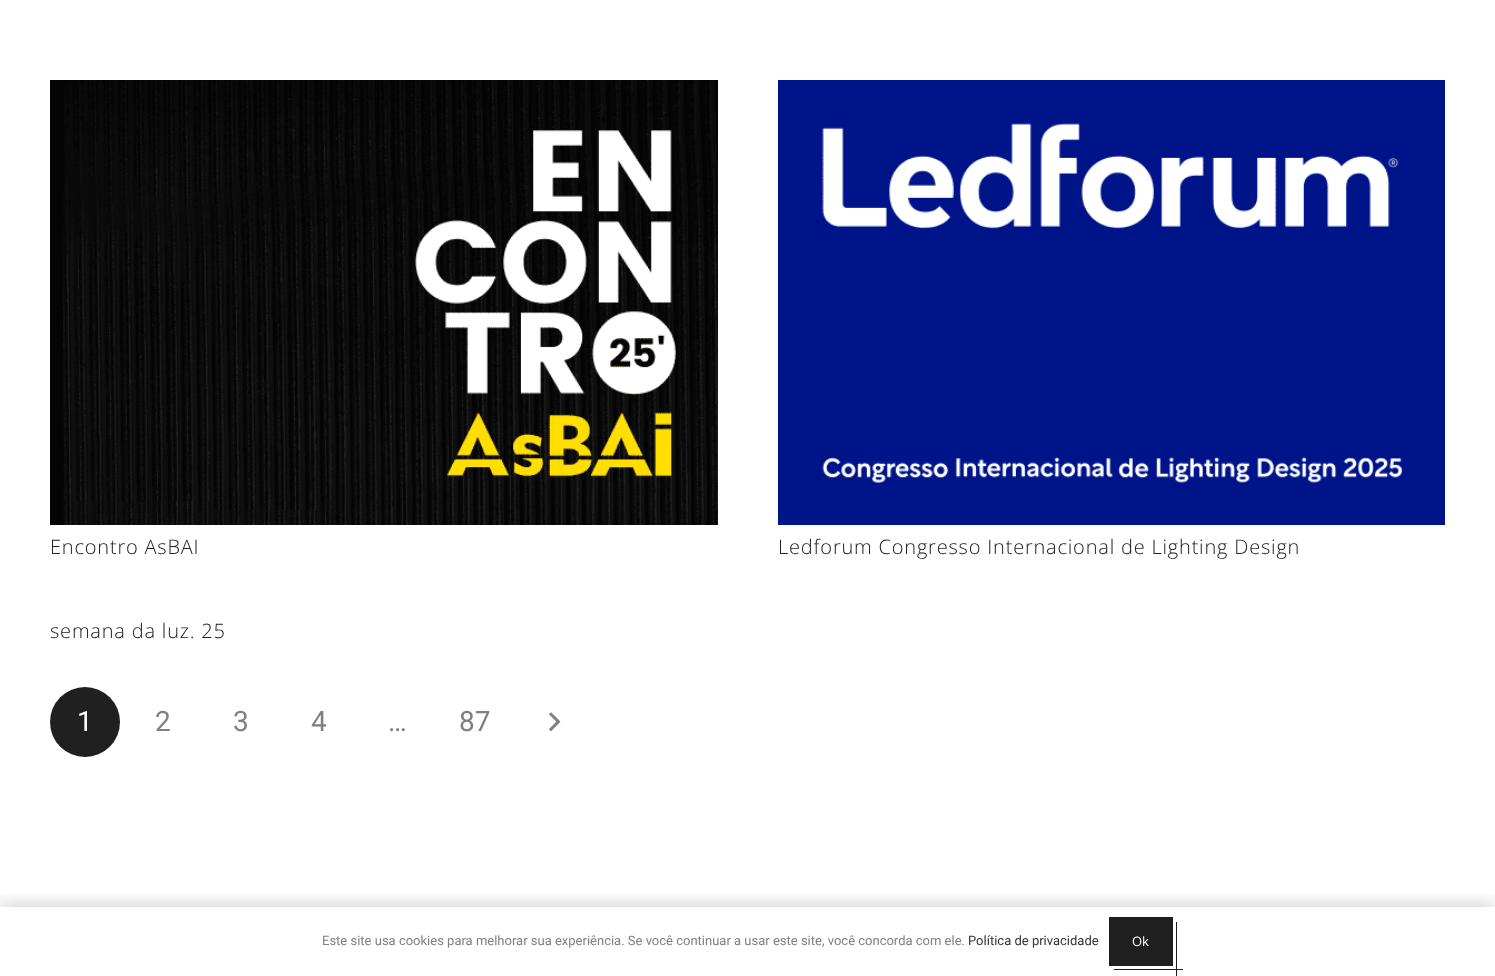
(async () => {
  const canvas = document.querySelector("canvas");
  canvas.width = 1495;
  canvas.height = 976;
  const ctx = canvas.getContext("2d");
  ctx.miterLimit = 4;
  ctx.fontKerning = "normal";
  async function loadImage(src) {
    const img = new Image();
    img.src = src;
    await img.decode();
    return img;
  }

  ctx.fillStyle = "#ffffff";
  ctx.fillRect(0, 0, 1495, 976);
  ctx.drawImage(await loadImage("img/1.png"), 50, 80, 668, 445);
  ctx.drawImage(await loadImage("img/2.png"), 778, 80, 667, 445);
  ctx.fillStyle = "#212020";
  ctx.beginPath();
  ctx.arc(85, 722, 35, 0, Math.PI * 2);
  ctx.fill();
  ctx.drawImage(await loadImage("img/3.png"), 549, 712, 12, 19);
  ctx.save();
  ctx.beginPath();
  ctx.rect(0, 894, 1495, 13);
  ctx.clip();
  ctx.fillStyle = "rgba(0, 0, 0, 0.15)";
  ctx.filter = "blur(7.5px)";
  ctx.beginPath();
  ctx.rect(0, 902, 1495, 69);
  ctx.fill();
  ctx.filter = "none";
  ctx.restore();
  for (const [x, y, w, h, color] of [
    [1109, 917, 64, 49, "#212020"],
    [1176, 922, 1, 54, "#212020"],
    [1114, 969, 69, 1, "#212020"],
  ]) {
    ctx.fillStyle = color;
    ctx.fillRect(x, y, w, h);
  }
  ctx.letterSpacing = "0.8px";
  ctx.font = "300 20px Open Sans";
  for (const [text, x, y] of [
    ["Encontro AsBAI", 50, 554],
    ["Ledforum Congresso Internacional de Lighting Design", 778, 554],
    ["semana da luz. 25", 50, 638],
  ]) {
    ctx.fillText(text, x, y);
  }
  ctx.letterSpacing = "0px";
  ctx.font = "28px Roboto";
  ctx.fillStyle = "#ffffff";
  ctx.fillText("1", 77, 731);
  ctx.fillStyle = "#808080";
  for (const [text, x, y] of [
    ["2", 155, 731],
    ["3", 233, 731],
    ["4", 311, 731],
    ["…", 388, 731],
    ["87", 459, 731],
  ]) {
    ctx.fillText(text, x, y);
  }
  ctx.font = "13px Roboto";
  ctx.fillText("Este site usa cookies para melhorar sua experiência. Se você continuar a usar este site, você concorda com ele.", 322, 945);
  ctx.fillStyle = "#333333";
  ctx.fillText("Política de privacidade", 968, 945);
  ctx.font = "13px Open Sans";
  ctx.fillStyle = "#ffffff";
  ctx.fillText("Ok", 1132, 946);
})();
